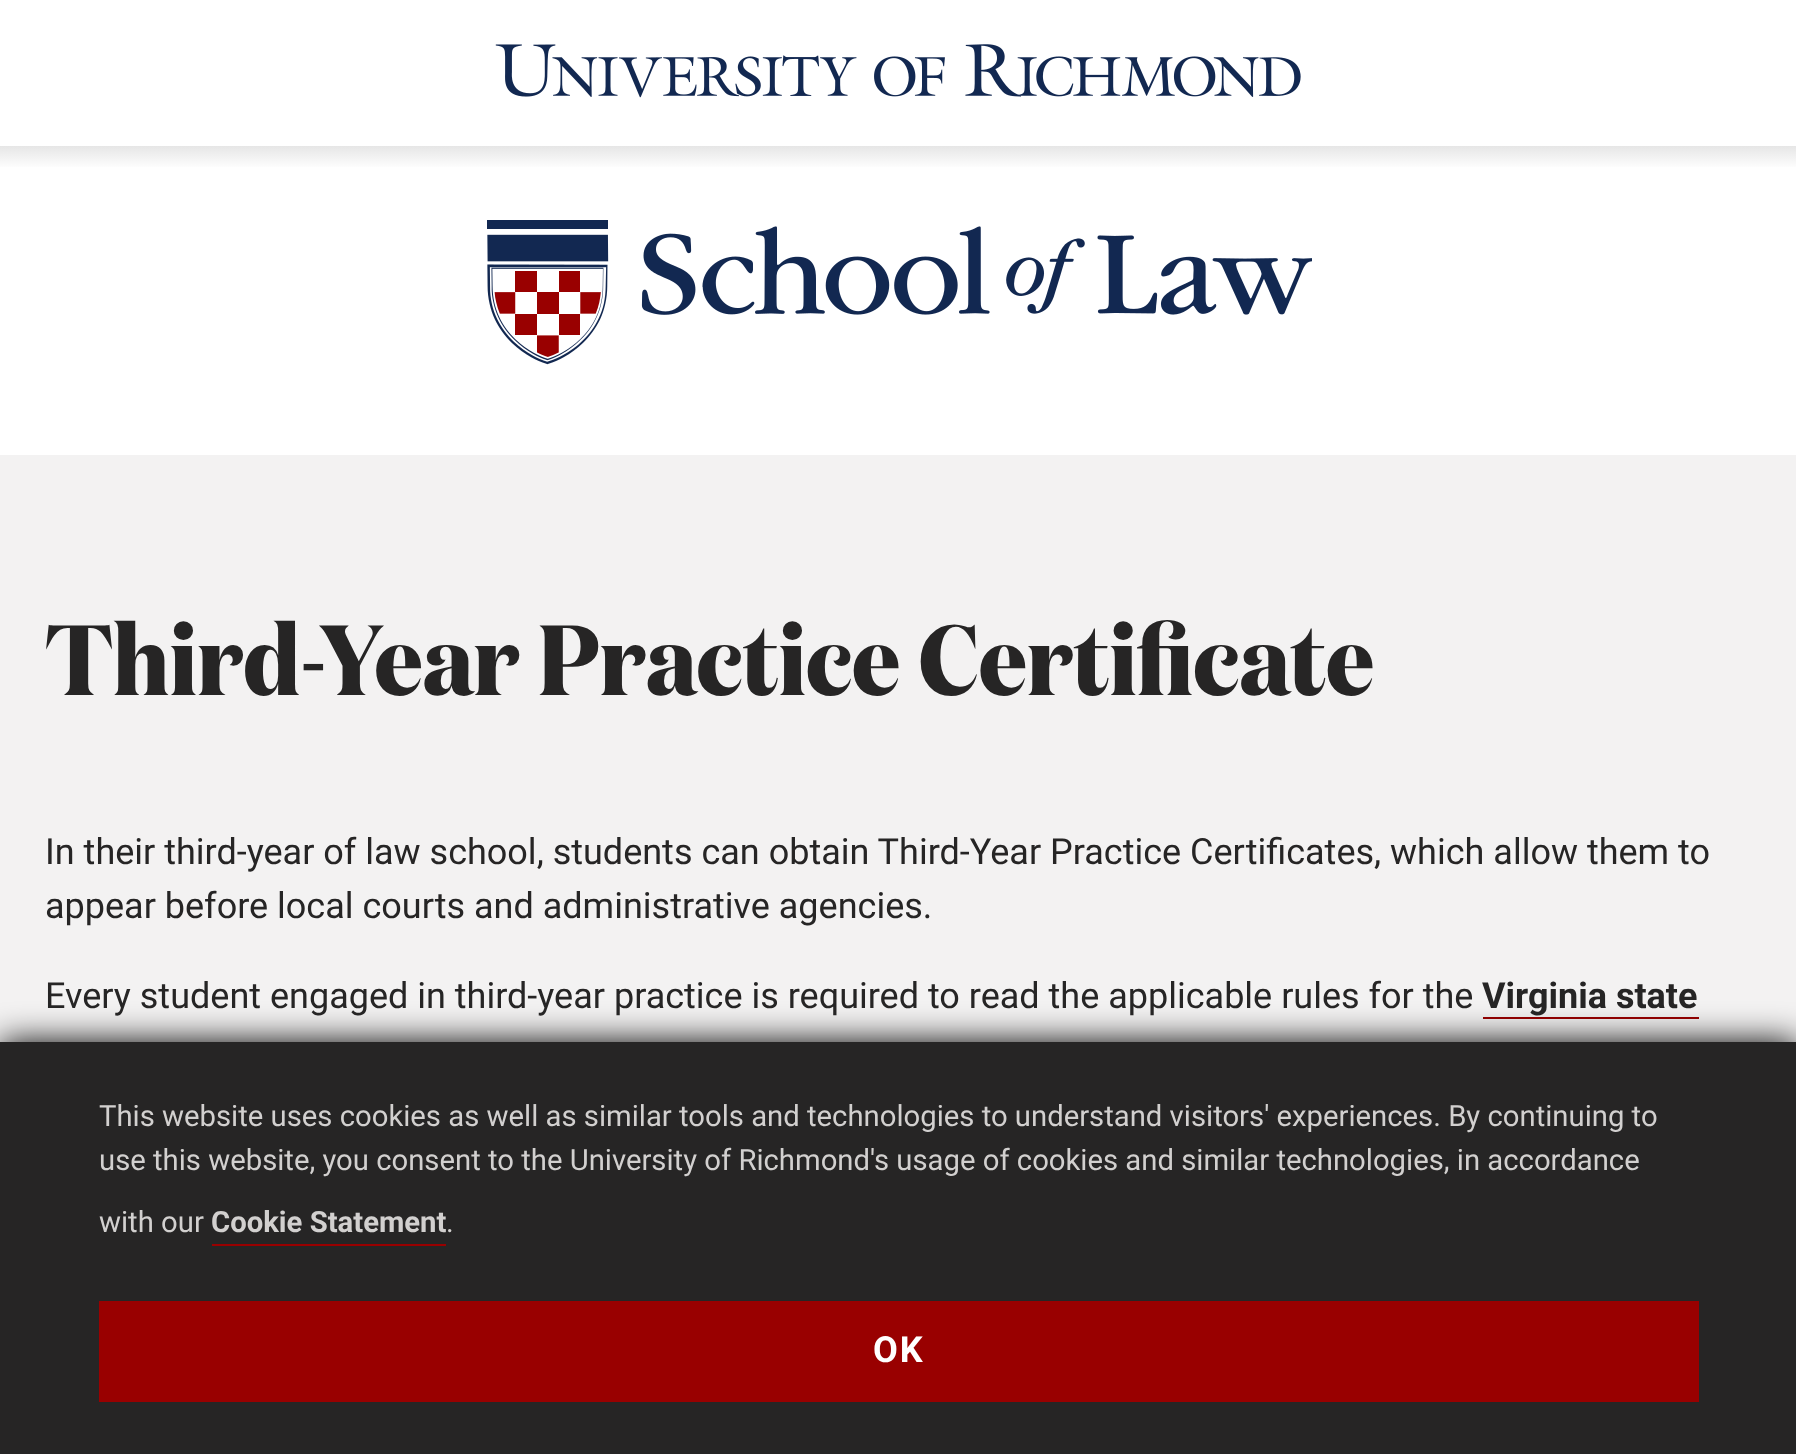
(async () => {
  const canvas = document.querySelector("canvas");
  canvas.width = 1796;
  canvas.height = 1454;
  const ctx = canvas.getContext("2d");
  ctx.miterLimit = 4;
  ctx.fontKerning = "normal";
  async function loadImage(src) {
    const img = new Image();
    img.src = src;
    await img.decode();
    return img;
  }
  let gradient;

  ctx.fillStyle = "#ffffff";
  ctx.fillRect(0, 0, 1796, 1454);
  ctx.drawImage(await loadImage("img/1.png"), 495, 44, 806, 54);
  gradient = ctx.createLinearGradient(899, 169, 899, 146);
  gradient.addColorStop(0, "#ffffff");
  gradient.addColorStop(1, "#e6e6e6");
  ctx.fillStyle = gradient;
  ctx.fillRect(0, 146, 1796, 21);
  ctx.drawImage(await loadImage("img/2.png"), 487, 220, 825, 145);
  ctx.fillStyle = "#f3f2f2";
  ctx.fillRect(0, 455, 1796, 587);
  ctx.fillStyle = "#990000";
  ctx.fillRect(1483, 1017, 216, 2);
  ctx.fillStyle = "#000000";
  ctx.filter = "blur(17px)";
  ctx.beginPath();
  ctx.rect(0, 1042, 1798, 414);
  ctx.fill();
  ctx.filter = "none";
  for (const [x, y, w, h, color] of [
    [0, 1042, 1796, 412, "#262525"],
    [212, 1244, 234, 2, "#990000"],
    [99, 1301, 1600, 101, "#990000"],
  ]) {
    ctx.fillStyle = color;
    ctx.fillRect(x, y, w, h);
  }
  ctx.font = "bold 99.25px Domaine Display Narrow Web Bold";
  ctx.fillStyle = "#262525";
  ctx.fillText("Third-Year Practice Certificate", 45, 695);
  ctx.font = "36px Roboto";
  for (const [text, x, y] of [
    ["In their third-year of law school, students can obtain Third-Year Practice Certificates, which allow them to", 45, 864],
    ["appear before local courts and administrative agencies.", 45, 918],
    ["Every student engaged in third-year practice is required to read the applicable rules for the", 45, 1008],
  ]) {
    ctx.fillText(text, x, y);
  }
  ctx.font = "bold 36px Roboto";
  ctx.fillText("Virginia state", 1482, 1008);
  ctx.font = "29.27px Roboto";
  ctx.fillStyle = "#d2d0cf";
  for (const [text, x, y] of [
    ["This website uses cookies as well as similar tools and technologies to understand visitors' experiences. By continuing to", 99, 1126],
    ["use this website, you consent to the University of Richmond's usage of cookies and similar technologies, in accordance", 99, 1170],
    ["with our", 99, 1232],
  ]) {
    ctx.fillText(text, x, y);
  }
  ctx.font = "bold 29.27px Roboto";
  ctx.fillText("Cookie Statement", 211, 1232);
  ctx.font = "29.27px Roboto";
  ctx.fillText(".", 446, 1232);
  ctx.letterSpacing = "2px";
  ctx.font = "bold 36px Roboto";
  ctx.fillStyle = "#ffffff";
  ctx.fillText("OK", 873, 1362);
})();
